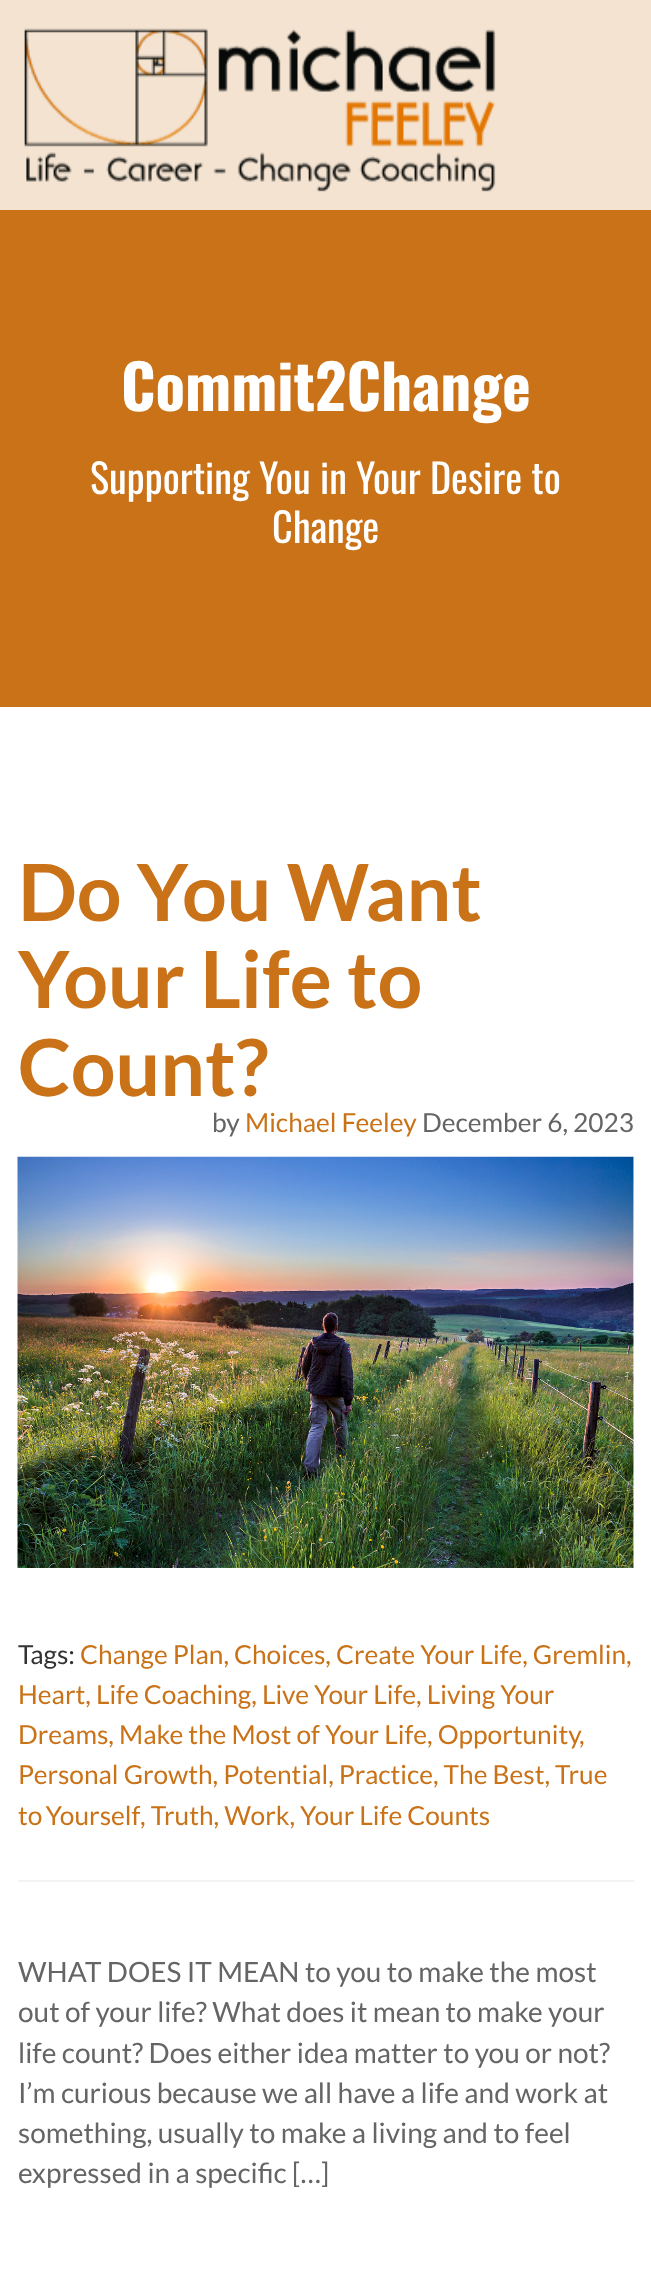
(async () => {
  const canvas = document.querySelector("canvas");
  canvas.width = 651;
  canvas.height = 2279;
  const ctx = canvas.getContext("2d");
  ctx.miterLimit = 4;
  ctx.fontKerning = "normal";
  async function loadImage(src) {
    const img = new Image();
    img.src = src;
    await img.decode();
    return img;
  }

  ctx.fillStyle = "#ffffff";
  ctx.fillRect(0, 0, 651, 2279);
  ctx.fillStyle = "#f4e3d1";
  ctx.fillRect(0, 0, 651, 210);
  ctx.drawImage(await loadImage("img/1.png"), 24, 28, 472, 164);
  ctx.fillStyle = "#ca7218";
  ctx.fillRect(0, 210, 651, 497);
  ctx.drawImage(await loadImage("img/2.png"), 17, 1156, 617, 412);
  ctx.fillStyle = "#f3f3f3";
  ctx.fillRect(18, 1880, 616, 2);
  ctx.font = "bold 61.25px Oswald";
  ctx.fillStyle = "#ffffff";
  ctx.fillText("Commit2Change", 121, 411);
  ctx.font = "40.25px Oswald";
  ctx.fillText("Supporting You in Your Desire to", 90, 494);
  ctx.fillText("Change", 272, 543);
  ctx.font = "bold 78.75px Lato";
  ctx.fillStyle = "#ca7218";
  for (const [text, x, y] of [
    ["Do You Want", 18, 921],
    ["Your Life to", 18, 1008],
    ["Count?", 18, 1096],
  ]) {
    ctx.fillText(text, x, y);
  }
  ctx.font = "26.25px Lato";
  ctx.fillStyle = "#656565";
  ctx.fillText("by", 212, 1132);
  ctx.fillStyle = "#ca7218";
  ctx.fillText("Michael Feeley", 245, 1132);
  ctx.fillStyle = "#656565";
  ctx.fillText("December 6, 2023", 422, 1132);
  ctx.fillStyle = "#333333";
  ctx.fillText("Tags:", 18, 1664);
  ctx.fillStyle = "#ca7218";
  for (const [text, x, y] of [
    ["Change Plan, Choices, Create Your Life, Gremlin,", 80, 1664],
    ["Heart, Life Coaching, Live Your Life, Living Your", 18, 1704],
    ["Dreams, Make the Most of Your Life, Opportunity", 18, 1744],
    [",", 579, 1744],
    ["Personal Growth, Potential, Practice, The Best, True", 18, 1784],
  ]) {
    ctx.fillText(text, x, y);
  }
  ctx.wordSpacing = "-2px";
  ctx.fillText("to Yourself", 18, 1825);
  ctx.wordSpacing = "0px";
  ctx.fillText(", Truth, Work, Your Life Counts", 140, 1825);
  ctx.font = "28px Lato";
  ctx.fillStyle = "#656565";
  for (const [text, x, y] of [
    ["WHAT DOES IT MEAN to you to make the most", 18, 1982],
    ["out of your life? What does it mean to make your", 18, 2022],
    ["life count? Does either idea matter to you or not?", 18, 2063],
    ["I’m curious because we all have a life and work at", 18, 2103],
    ["something, usually to make a living and to feel", 18, 2143],
    ["expressed in a specific […]", 18, 2183],
  ]) {
    ctx.fillText(text, x, y);
  }
})();
